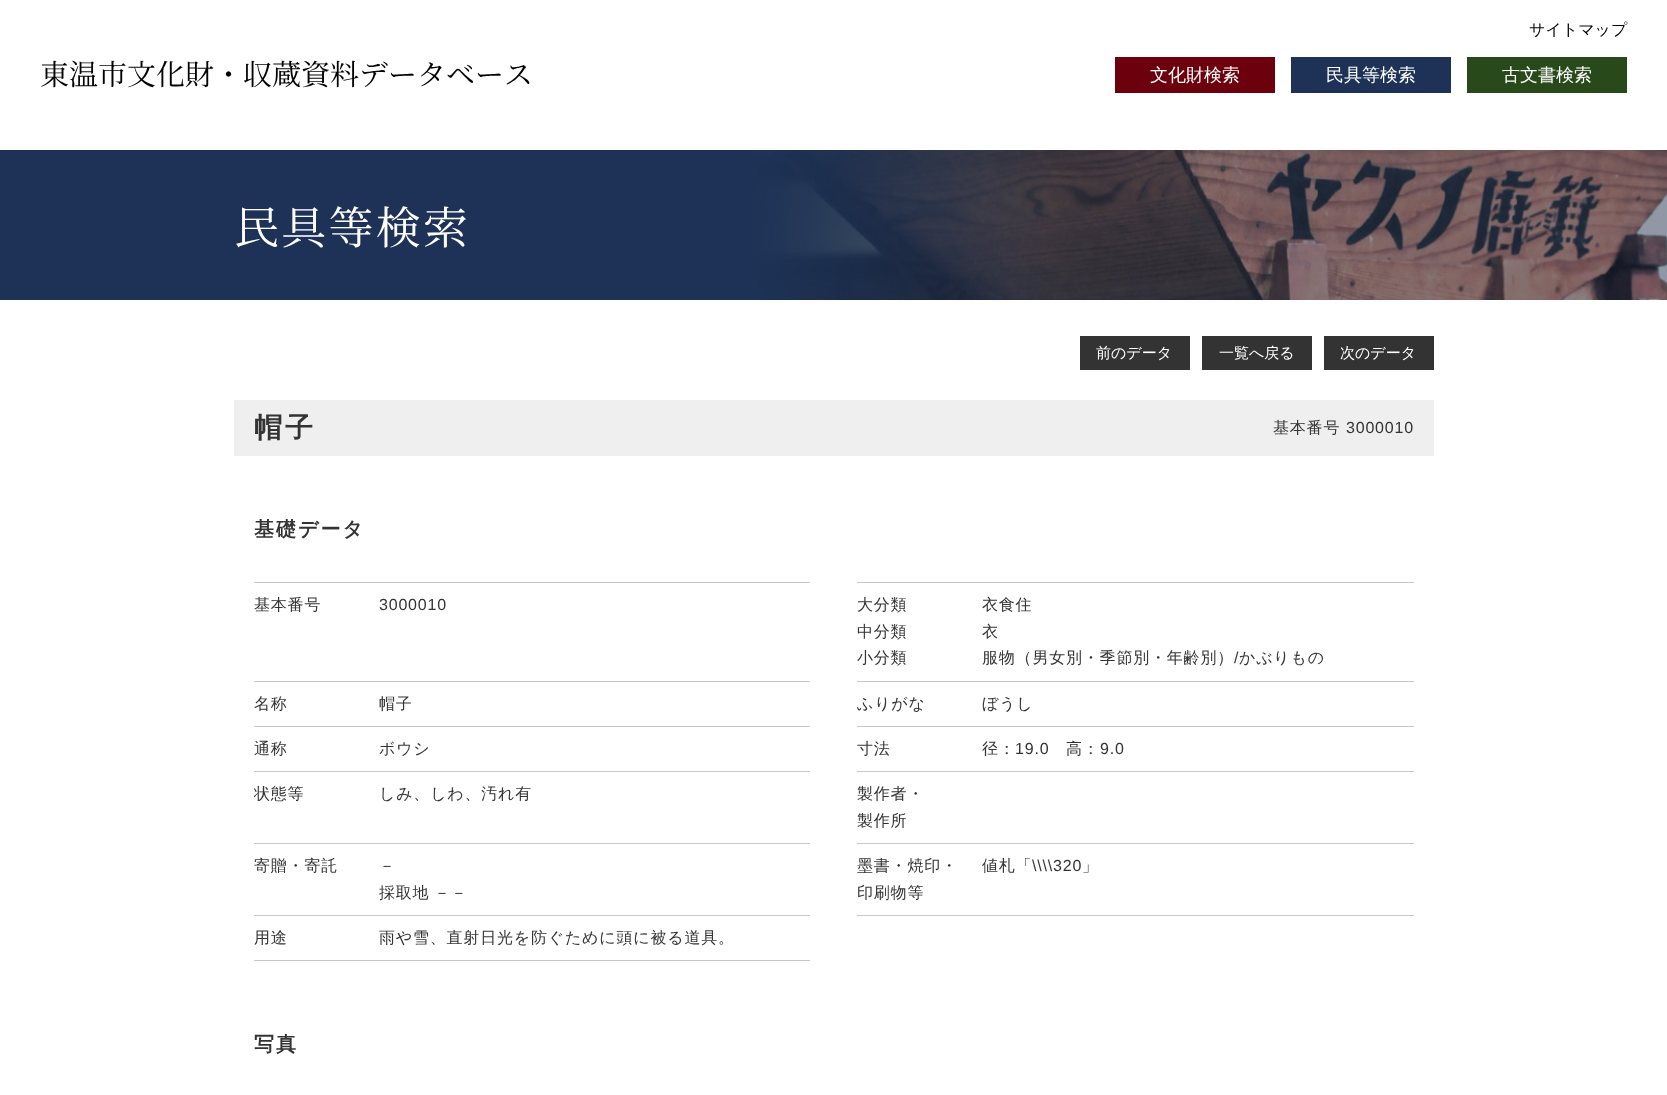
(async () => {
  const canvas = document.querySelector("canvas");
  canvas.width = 1667;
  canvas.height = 1095;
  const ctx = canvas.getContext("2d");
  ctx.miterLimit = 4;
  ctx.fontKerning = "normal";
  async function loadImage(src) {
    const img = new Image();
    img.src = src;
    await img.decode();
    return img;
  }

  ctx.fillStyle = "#ffffff";
  ctx.fillRect(0, 0, 1667, 1095);
  for (const [x, y, w, h, color] of [
    [1115, 57, 160, 36, "#6d000d"],
    [1291, 57, 160, 36, "#1d3256"],
    [1467, 57, 160, 36, "#284919"],
  ]) {
    ctx.fillStyle = color;
    ctx.fillRect(x, y, w, h);
  }
  ctx.drawImage(await loadImage("img/1.png"), 0, 150, 1667, 150);
  for (const [x, y, w, h, color] of [
    [1080, 336, 110, 34, "#333333"],
    [1202, 336, 110, 34, "#333333"],
    [1324, 336, 110, 34, "#333333"],
    [234, 400, 1200, 56, "#efefef"],
    [254, 582, 556, 1, "#c7c7c7"],
    [254, 681, 556, 1, "#c7c7c7"],
    [857, 582, 557, 1, "#c7c7c7"],
    [857, 681, 557, 1, "#c7c7c7"],
    [254, 726, 556, 1, "#c7c7c7"],
    [857, 726, 557, 1, "#c7c7c7"],
    [254, 771, 556, 1, "#c7c7c7"],
    [857, 771, 557, 1, "#c7c7c7"],
    [254, 843, 556, 1, "#c7c7c7"],
    [857, 843, 557, 1, "#c7c7c7"],
    [254, 915, 556, 1, "#c7c7c7"],
    [857, 915, 557, 1, "#c7c7c7"],
    [254, 960, 556, 1, "#c7c7c7"],
  ]) {
    ctx.fillStyle = color;
    ctx.fillRect(x, y, w, h);
  }
  ctx.font = "500 16px WenQuanYi Zen Hei";
  ctx.fillStyle = "#000000";
  ctx.fillText("サイトマップ", 1529, 35);
  ctx.font = "29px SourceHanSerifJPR";
  ctx.fillText("東温市文化財・収蔵資料データベース", 40, 85);
  ctx.font = "500 18px WenQuanYi Zen Hei";
  ctx.fillStyle = "#ffffff";
  for (const [text, x, y] of [
    ["文化財検索", 1150, 81],
    ["民具等検索", 1326, 81],
    ["古文書検索", 1502, 81],
  ]) {
    ctx.fillText(text, x, y);
  }
  ctx.letterSpacing = "2.25px";
  ctx.font = "45px SourceHanSerifJPR";
  ctx.fillText("民具等検索", 234, 244);
  ctx.letterSpacing = "0px";
  ctx.font = "500 15px WenQuanYi Zen Hei";
  for (const [text, x, y] of [
    ["前のデータ", 1096, 358],
    ["一覧へ戻る", 1219, 358],
    ["次のデータ", 1340, 358],
  ]) {
    ctx.fillText(text, x, y);
  }
  ctx.letterSpacing = "3px";
  ctx.font = "bold 28px WenQuanYi Zen Hei";
  ctx.fillStyle = "#333333";
  ctx.fillText("帽子", 254, 437);
  ctx.letterSpacing = "0.8px";
  ctx.font = "500 16px WenQuanYi Zen Hei";
  ctx.fillText("基本番号", 1273, 433);
  ctx.font = "16px Liberation Sans";
  ctx.fillText("3000010", 1346, 433);
  ctx.letterSpacing = "2px";
  ctx.font = "bold 20px WenQuanYi Zen Hei";
  ctx.fillText("基礎データ", 254, 536);
  ctx.letterSpacing = "0.8px";
  ctx.font = "500 16px WenQuanYi Zen Hei";
  ctx.fillText("基本番号", 254, 610);
  ctx.font = "16px Liberation Sans";
  ctx.fillText("3000010", 379, 610);
  ctx.font = "500 16px WenQuanYi Zen Hei";
  for (const [text, x, y] of [
    ["大分類", 857, 610],
    ["衣食住", 982, 610],
    ["中分類", 857, 637],
    ["衣", 982, 637],
    ["小分類", 857, 663],
    ["服物（男女別・季節別・年齢別）", 982, 663],
  ]) {
    ctx.fillText(text, x, y);
  }
  ctx.font = "16px Liberation Sans";
  ctx.fillText("/", 1234, 663);
  ctx.font = "500 16px WenQuanYi Zen Hei";
  for (const [text, x, y] of [
    ["かぶりもの", 1239, 663],
    ["名称", 254, 709],
    ["帽子", 379, 709],
    ["ふりがな", 857, 709],
    ["ぼうし", 982, 709],
    ["通称", 254, 754],
    ["ボウシ", 379, 754],
    ["寸法", 857, 754],
    ["径：", 982, 754],
  ]) {
    ctx.fillText(text, x, y);
  }
  ctx.font = "16px Liberation Sans";
  ctx.fillText("19.0", 1015, 754);
  ctx.font = "500 16px WenQuanYi Zen Hei";
  ctx.fillText("高：", 1066, 754);
  ctx.font = "16px Liberation Sans";
  ctx.fillText("9.0", 1100, 754);
  ctx.font = "500 16px WenQuanYi Zen Hei";
  for (const [text, x, y] of [
    ["状態等", 254, 799],
    ["しみ、しわ、汚れ有", 379, 799],
    ["製作者・", 857, 799],
    ["製作所", 857, 826],
    ["寄贈・寄託", 254, 871],
    ["－", 379, 871],
    ["採取地", 379, 898],
    ["－－", 434, 898],
    ["墨書・焼印・", 857, 871],
    ["印刷物等", 857, 898],
    ["値札「", 982, 871],
  ]) {
    ctx.fillText(text, x, y);
  }
  ctx.font = "16px Liberation Sans";
  ctx.fillText("\\\\\\\\320", 1032, 871);
  ctx.font = "500 16px WenQuanYi Zen Hei";
  for (const [text, x, y] of [
    ["」", 1082, 871],
    ["用途", 254, 943],
    ["雨や雪、直射日光を防ぐために頭に被る道具。", 379, 943],
  ]) {
    ctx.fillText(text, x, y);
  }
  ctx.letterSpacing = "2px";
  ctx.font = "bold 20px WenQuanYi Zen Hei";
  ctx.fillText("写真", 254, 1051);
})();
